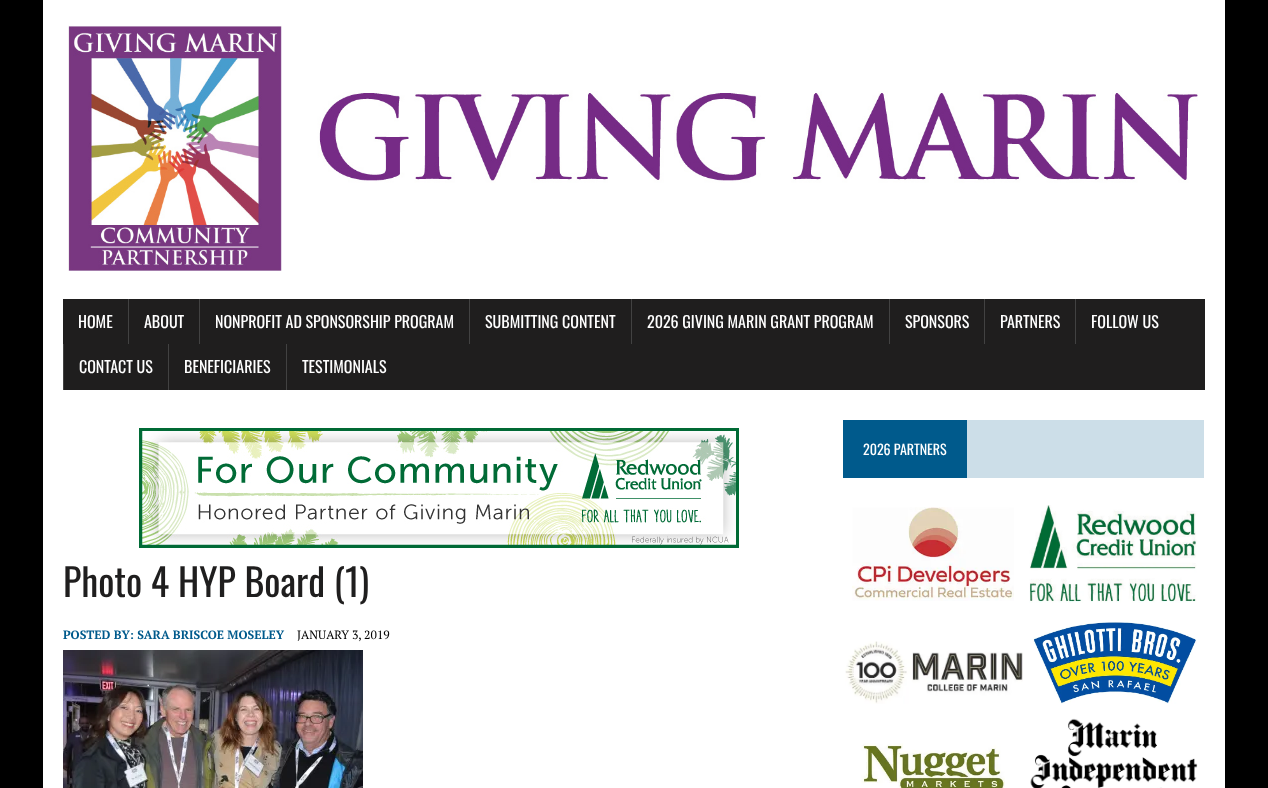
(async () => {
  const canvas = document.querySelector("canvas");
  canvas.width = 1268;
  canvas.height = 788;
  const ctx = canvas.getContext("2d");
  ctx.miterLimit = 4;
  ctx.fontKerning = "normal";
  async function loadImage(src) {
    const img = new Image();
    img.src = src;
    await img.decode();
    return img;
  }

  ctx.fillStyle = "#000000";
  ctx.fillRect(0, 0, 1268, 788);
  ctx.fillStyle = "#ffffff";
  ctx.fillRect(43, 0, 1182, 788);
  ctx.drawImage(await loadImage("img/1.png"), 68, 25, 1130, 246);
  for (const [x, y, w, h, color] of [
    [63, 299, 1142, 91, "#1f1e1e"],
    [128, 299, 1, 45, "#424242"],
    [199, 299, 1, 45, "#424242"],
    [469, 299, 1, 45, "#424242"],
    [631, 299, 1, 45, "#424242"],
    [889, 299, 1, 45, "#424242"],
    [984, 299, 1, 45, "#424242"],
    [1075, 299, 1, 45, "#424242"],
    [63, 344, 1, 46, "#424242"],
    [168, 344, 1, 46, "#424242"],
    [286, 344, 1, 46, "#424242"],
    [967, 420, 237, 58, "#ccdee8"],
    [843, 420, 124, 58, "#005a8c"],
  ]) {
    ctx.fillStyle = color;
    ctx.fillRect(x, y, w, h);
  }
  ctx.drawImage(await loadImage("img/2.png"), 852, 507, 162, 94);
  ctx.drawImage(await loadImage("img/3.png"), 1029, 505, 168, 98);
  ctx.drawImage(await loadImage("img/4.png"), 845, 641, 178, 63);
  ctx.drawImage(await loadImage("img/5.png"), 1033, 622, 164, 82);
  ctx.drawImage(await loadImage("img/6.png"), 861, 743, 144, 45);
  ctx.drawImage(await loadImage("img/7.png"), 1030, 718, 168, 70);
  ctx.drawImage(await loadImage("img/8.png"), 139, 428, 600, 120);
  ctx.drawImage(await loadImage("img/9.png"), 63, 650, 300, 138);
  ctx.font = "16px Oswald";
  ctx.fillStyle = "#ffffff";
  for (const [text, x, y] of [
    ["HOME", 78, 328],
    ["ABOUT", 144, 328],
    ["NONPROFIT AD SPONSORSHIP PROGRAM", 215, 328],
    ["SUBMITTING CONTENT", 485, 328],
    ["2026 GIVING MARIN GRANT PROGRAM", 647, 328],
    ["SPONSORS", 905, 328],
    ["PARTNERS", 1000, 328],
    ["FOLLOW US", 1091, 328],
    ["CONTACT US", 79, 373],
    ["BENEFICIARIES", 184, 373],
    ["TESTIMONIALS", 302, 373],
  ]) {
    ctx.fillText(text, x, y);
  }
  ctx.font = "14px Oswald";
  ctx.fillText("2026 PARTNERS", 863, 455);
  ctx.font = "38px Oswald";
  ctx.fillStyle = "#1f1e1e";
  ctx.fillText("Photo 4 HYP Board (1)", 63, 597);
  ctx.font = "bold 12px PT Serif";
  ctx.fillStyle = "#005a8c";
  ctx.fillText("POSTED BY: SARA BRISCOE MOSELEY", 63, 639);
  ctx.font = "12px PT Serif";
  ctx.fillStyle = "#000000";
  ctx.fillText("JANUARY 3, 2019", 297, 639);
})();
